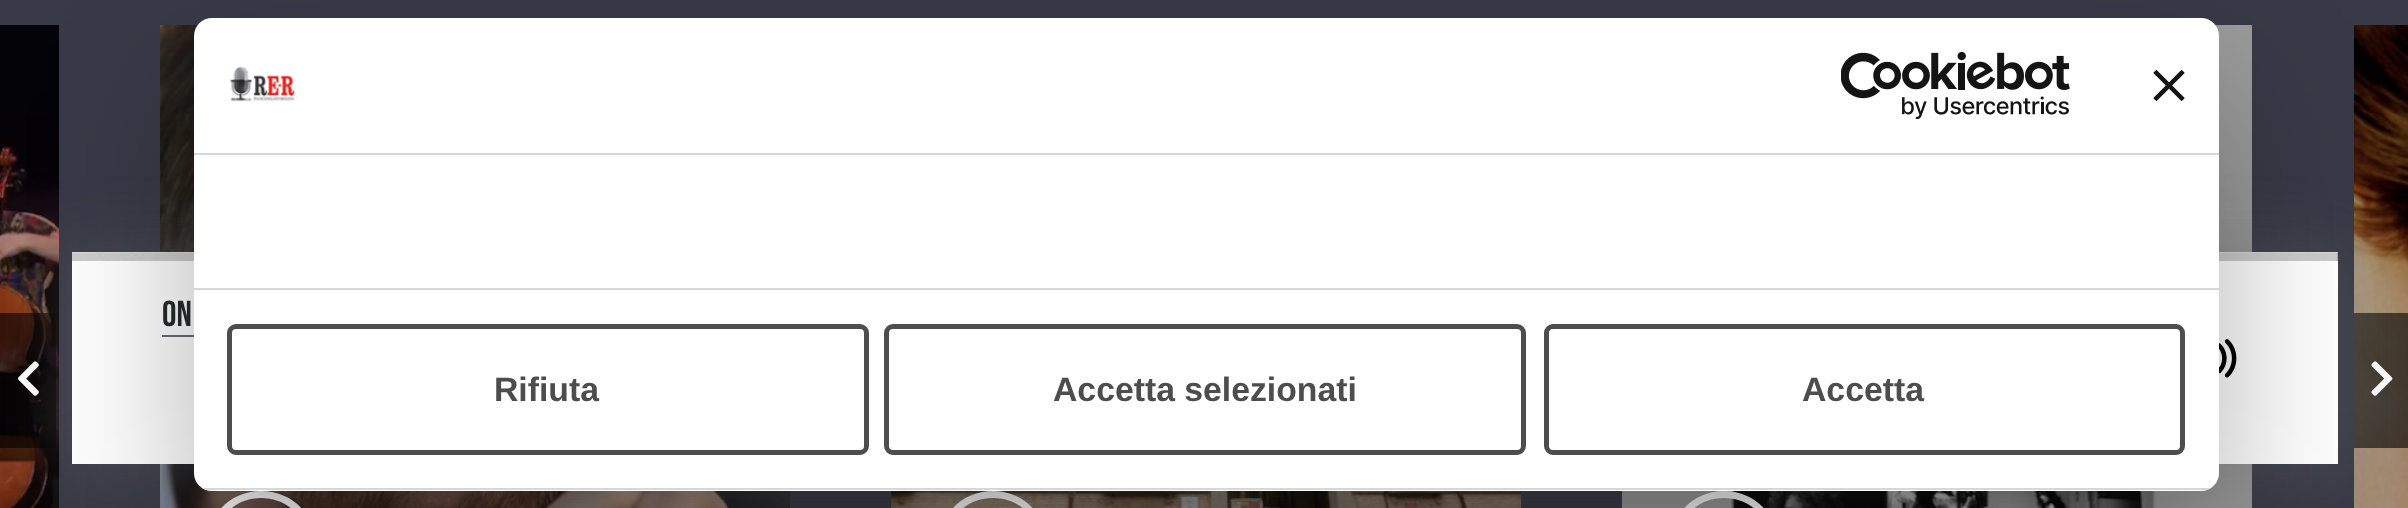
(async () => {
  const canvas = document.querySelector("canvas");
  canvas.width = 2408;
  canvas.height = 508;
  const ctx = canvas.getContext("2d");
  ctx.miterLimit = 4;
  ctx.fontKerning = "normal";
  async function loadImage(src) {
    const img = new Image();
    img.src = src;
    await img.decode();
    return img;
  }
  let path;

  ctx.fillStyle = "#383a47";
  ctx.fillRect(0, 0, 2408, 508);
  ctx.drawImage(await loadImage("img/1.png"), 0, 25, 59, 483);
  ctx.drawImage(await loadImage("img/2.png"), 160, 25, 630, 483);
  ctx.fillStyle = "#ffffff";
  path = new Path2D("M250 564L281 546L250 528ZM261 491C208 491 186 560 228 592C238 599 249 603 261 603C273 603 285 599 295 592C337 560 315 491 261 491ZM261 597C252 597 242 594 234 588C195 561 214 498 261 498C308 498 327 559 291 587C282 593 272 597 261 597Z");
  ctx.fill(path);
  ctx.drawImage(await loadImage("img/3.png"), 891, 491, 630, 17);
  path = new Path2D("M982 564L1012 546L982 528ZM993 491C939 491 918 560 960 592C969 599 981 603 993 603C1005 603 1016 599 1026 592C1068 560 1046 491 993 491ZM993 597C983 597 974 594 966 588C926 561 945 498 993 498C1040 498 1059 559 1022 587C1013 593 1003 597 993 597Z");
  ctx.fill(path);
  ctx.drawImage(await loadImage("img/4.png"), 1622, 25, 630, 483);
  path = new Path2D("M1713 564L1743 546L1713 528ZM1724 491C1671 491 1649 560 1691 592C1700 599 1712 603 1724 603C1736 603 1748 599 1757 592C1799 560 1777 491 1724 491ZM1724 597C1714 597 1705 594 1697 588C1658 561 1676 498 1724 498C1771 498 1790 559 1753 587C1745 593 1734 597 1724 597Z");
  ctx.fill(path);
  ctx.drawImage(await loadImage("img/5.png"), 2354, 25, 54, 483);
  ctx.fillStyle = "rgba(0, 0, 0, 0.6)";
  ctx.fillRect(0, 313, 56, 135);
  ctx.drawImage(await loadImage("img/6.png"), 17, 361, 22, 35);
  ctx.fillRect(2354, 313, 54, 135);
  ctx.drawImage(await loadImage("img/7.png"), 2371, 361, 22, 35);
  ctx.fillStyle = "rgba(112, 112, 112, 0.3)";
  ctx.filter = "blur(34px)";
  ctx.beginPath();
  ctx.rect(61, 250, 2288, 225);
  ctx.fill();
  ctx.filter = "none";
  ctx.fillStyle = "#ffffff";
  ctx.fillRect(72, 261, 2266, 203);
  ctx.drawImage(await loadImage("img/8.png"), 72, 252, 2266, 9);
  ctx.fillStyle = "#657075";
  ctx.fillRect(162, 335, 32, 2);
  ctx.drawImage(await loadImage("img/9.png"), 2219, 339, 18, 39);
  ctx.fillStyle = "rgba(0, 0, 0, 0.3)";
  ctx.filter = "blur(76.5px)";
  ctx.beginPath();
  ctx.roundRect(194, 90, 2025, 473, 18);
  ctx.fill();
  ctx.filter = "none";
  ctx.fillStyle = "#ffffff";
  ctx.beginPath();
  ctx.roundRect(194, 18, 2025, 473, 18);
  ctx.fill();
  ctx.fillStyle = "#d6d6d6";
  ctx.fillRect(194, 153, 2025, 2);
  ctx.drawImage(await loadImage("img/10.png"), 230, 66, 68, 36);
  ctx.drawImage(await loadImage("img/11.png"), 1841, 52, 229, 67);
  ctx.drawImage(await loadImage("img/12.png"), 2153, 70, 32, 31);
  ctx.fillRect(194, 288, 2025, 2);
  ctx.save();
  ctx.beginPath();
  ctx.roundRect(194, 18, 2025, 473, 18);
  ctx.clip();
  ctx.fillRect(194, 488, 2025, 2);
  ctx.restore();
  ctx.beginPath();
  ctx.roundRect(229.5, 326.5, 637, 126, 6.5);
  ctx.strokeStyle = "#4d4d4d";
  ctx.lineWidth = 5;
  ctx.stroke();
  ctx.beginPath();
  ctx.roundRect(886.5, 326.5, 637, 126, 6.5);
  ctx.stroke();
  ctx.beginPath();
  ctx.roundRect(1546.5, 326.5, 636, 126, 6.5);
  ctx.stroke();
  ctx.font = "36px Bebas Neue";
  ctx.fillStyle = "#212529";
  ctx.fillText("On", 162, 326);
  ctx.font = "bold 33.75px Liberation Sans";
  ctx.fillStyle = "#4d4d4d";
  for (const [text, x, y] of [
    ["Rifiuta", 494, 401],
    ["Accetta selezionati", 1053, 401],
    ["Accetta", 1802, 401],
  ]) {
    ctx.fillText(text, x, y);
  }
})();
